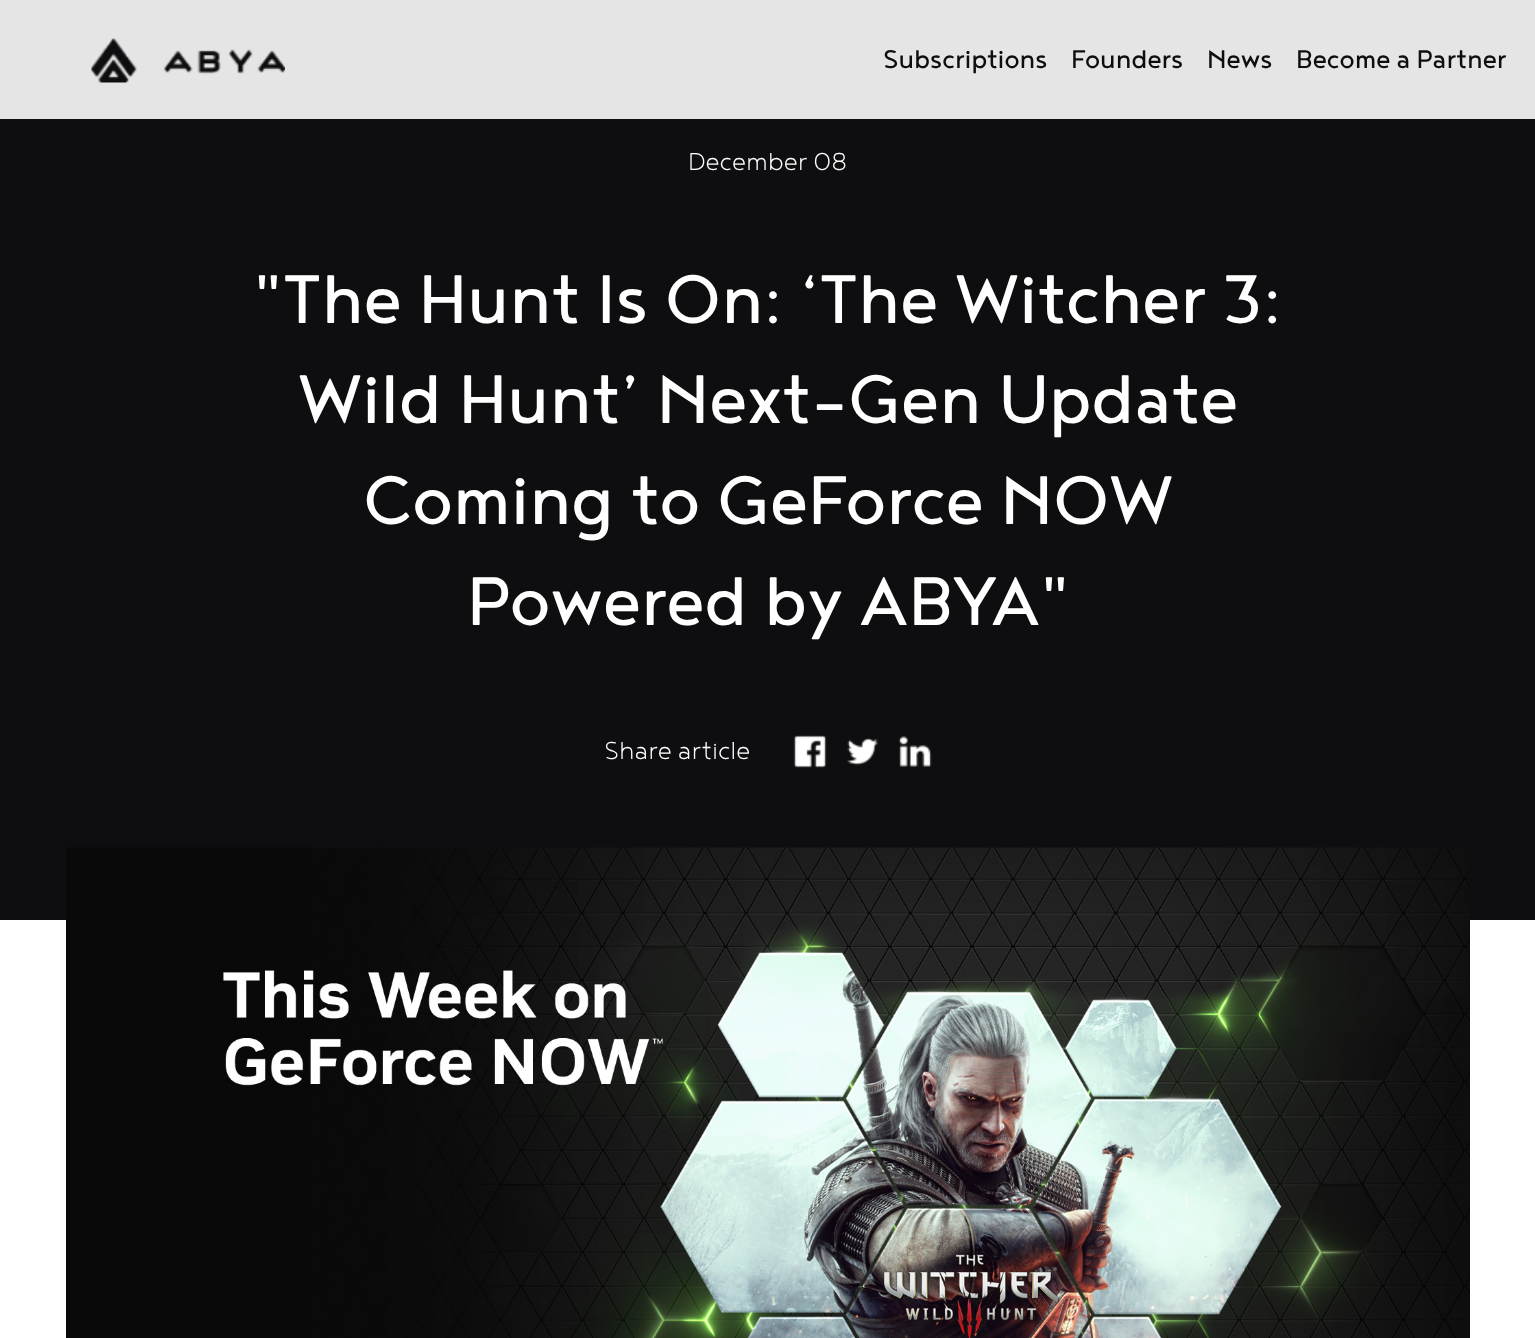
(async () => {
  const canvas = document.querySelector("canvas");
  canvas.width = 1535;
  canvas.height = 1338;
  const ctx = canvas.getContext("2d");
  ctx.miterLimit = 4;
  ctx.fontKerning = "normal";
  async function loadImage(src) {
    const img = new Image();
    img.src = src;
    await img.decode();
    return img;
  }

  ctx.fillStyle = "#ffffff";
  ctx.fillRect(0, 0, 1535, 1338);
  ctx.fillStyle = "#e5e5e5";
  ctx.fillRect(0, 0, 1535, 119);
  ctx.drawImage(await loadImage("img/1.png"), 91, 38, 194, 45);
  ctx.fillStyle = "#0e0e10";
  ctx.fillRect(0, 119, 1535, 801);
  ctx.drawImage(await loadImage("img/2.png"), 793, 735, 34, 33);
  ctx.drawImage(await loadImage("img/3.png"), 847, 738, 31, 28);
  ctx.drawImage(await loadImage("img/4.png"), 898, 736, 34, 31);
  ctx.drawImage(await loadImage("img/5.png"), 66, 847, 1404, 491);
  ctx.font = "31.25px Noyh";
  for (const [text, x, y] of [
    ["Subscriptions", 883, 68],
    ["Founders", 1071, 68],
    ["News", 1207, 68],
    ["Become a Partner", 1296, 68],
  ]) {
    ctx.fillText(text, x, y);
  }
  ctx.font = "300 30px Noyh";
  ctx.fillStyle = "#ffffff";
  ctx.fillText("December 08", 688, 170);
  ctx.font = "84px Noyh";
  for (const [text, x, y] of [
    ["\"The Hunt Is On: ‘The Witcher 3:", 253, 323],
    ["Wild Hunt’ Next-Gen Update", 298, 423],
    ["Coming to GeForce NOW", 363, 524],
    ["Powered by ABYA\"", 467, 625],
  ]) {
    ctx.fillText(text, x, y);
  }
  ctx.font = "300 30px Noyh";
  ctx.fillText("Share article", 604, 759);
})();
